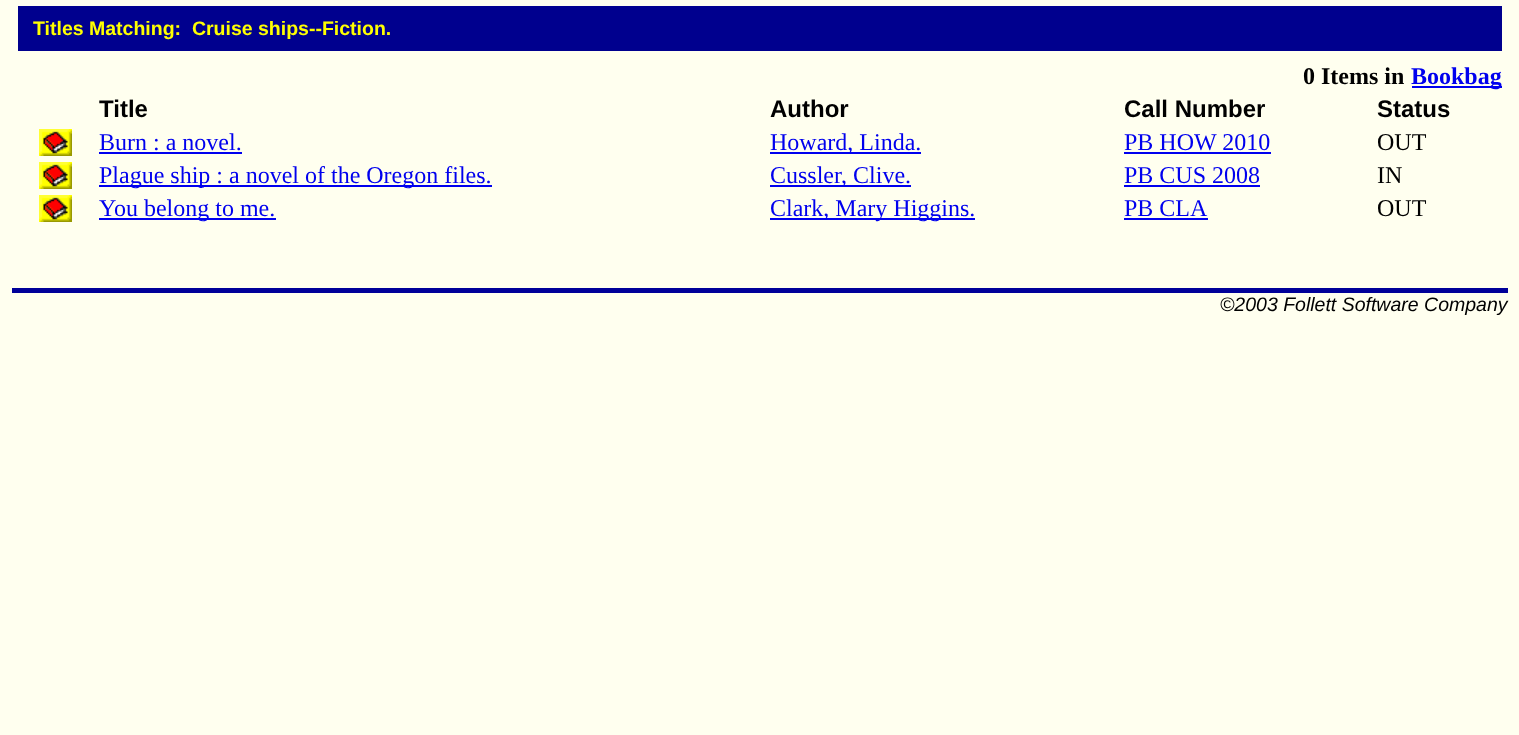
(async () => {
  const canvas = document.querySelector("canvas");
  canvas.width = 1519;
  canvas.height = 735;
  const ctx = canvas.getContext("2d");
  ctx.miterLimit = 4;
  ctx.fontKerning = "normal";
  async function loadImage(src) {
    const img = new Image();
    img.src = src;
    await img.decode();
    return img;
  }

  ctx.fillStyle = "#ffffef";
  ctx.fillRect(0, 0, 1519, 735);
  ctx.fillStyle = "#00008e";
  ctx.fillRect(18, 6, 1484, 45);
  ctx.fillStyle = "#0000ee";
  ctx.fillRect(1412, 86, 90, 2);
  ctx.drawImage(await loadImage("img/1.png"), 39, 129, 33, 27);
  for (const [x, y, w, h, color] of [
    [99, 152, 143, 2, "#0000ee"],
    [770, 152, 151, 2, "#0000ee"],
    [1124, 152, 147, 2, "#0000ee"],
  ]) {
    ctx.fillStyle = color;
    ctx.fillRect(x, y, w, h);
  }
  ctx.drawImage(await loadImage("img/1.png"), 39, 162, 33, 27);
  for (const [x, y, w, h, color] of [
    [99, 185, 393, 2, "#0000ee"],
    [770, 185, 141, 2, "#0000ee"],
    [1124, 185, 136, 2, "#0000ee"],
  ]) {
    ctx.fillStyle = color;
    ctx.fillRect(x, y, w, h);
  }
  ctx.drawImage(await loadImage("img/1.png"), 39, 195, 33, 27);
  for (const [x, y, w, h, color] of [
    [99, 218, 177, 2, "#0000ee"],
    [770, 218, 205, 2, "#0000ee"],
    [1124, 218, 84, 2, "#0000ee"],
    [12, 288, 1496, 5, "#000099"],
  ]) {
    ctx.fillStyle = color;
    ctx.fillRect(x, y, w, h);
  }
  ctx.font = "bold 19.5px Liberation Sans";
  ctx.fillStyle = "#ffff00";
  ctx.fillText("Titles Matching:  Cruise ships--Fiction.", 33, 35);
  ctx.font = "bold 24px Liberation Serif";
  ctx.fillStyle = "#000000";
  ctx.fillText("0 Items in", 1303, 84);
  ctx.fillStyle = "#0000ee";
  ctx.fillText("Bookbag", 1411, 84);
  ctx.font = "bold 24px Liberation Sans";
  ctx.fillStyle = "#000000";
  for (const [text, x, y] of [
    ["Title", 99, 117],
    ["Author", 770, 117],
    ["Call Number", 1124, 117],
    ["Status", 1377, 117],
  ]) {
    ctx.fillText(text, x, y);
  }
  ctx.font = "24px Liberation Serif";
  ctx.fillStyle = "#0000ee";
  for (const [text, x, y] of [
    ["Burn : a novel.", 99, 150],
    ["Howard, Linda.", 770, 150],
    ["PB HOW 2010", 1124, 150],
  ]) {
    ctx.fillText(text, x, y);
  }
  ctx.fillStyle = "#000000";
  ctx.fillText("OUT", 1377, 150);
  ctx.fillStyle = "#0000ee";
  for (const [text, x, y] of [
    ["Plague ship : a novel of the Oregon files.", 99, 183],
    ["Cussler, Clive.", 770, 183],
    ["PB CUS 2008", 1124, 183],
  ]) {
    ctx.fillText(text, x, y);
  }
  ctx.fillStyle = "#000000";
  ctx.fillText("IN", 1377, 183);
  ctx.fillStyle = "#0000ee";
  for (const [text, x, y] of [
    ["You belong to me.", 99, 216],
    ["Clark, Mary Higgins.", 770, 216],
    ["PB CLA", 1124, 216],
  ]) {
    ctx.fillText(text, x, y);
  }
  ctx.fillStyle = "#000000";
  ctx.fillText("OUT", 1377, 216);
  ctx.font = "italic 19.5px Liberation Sans";
  ctx.fillText("©2003 Follett Software Company", 1220, 311);
})();
